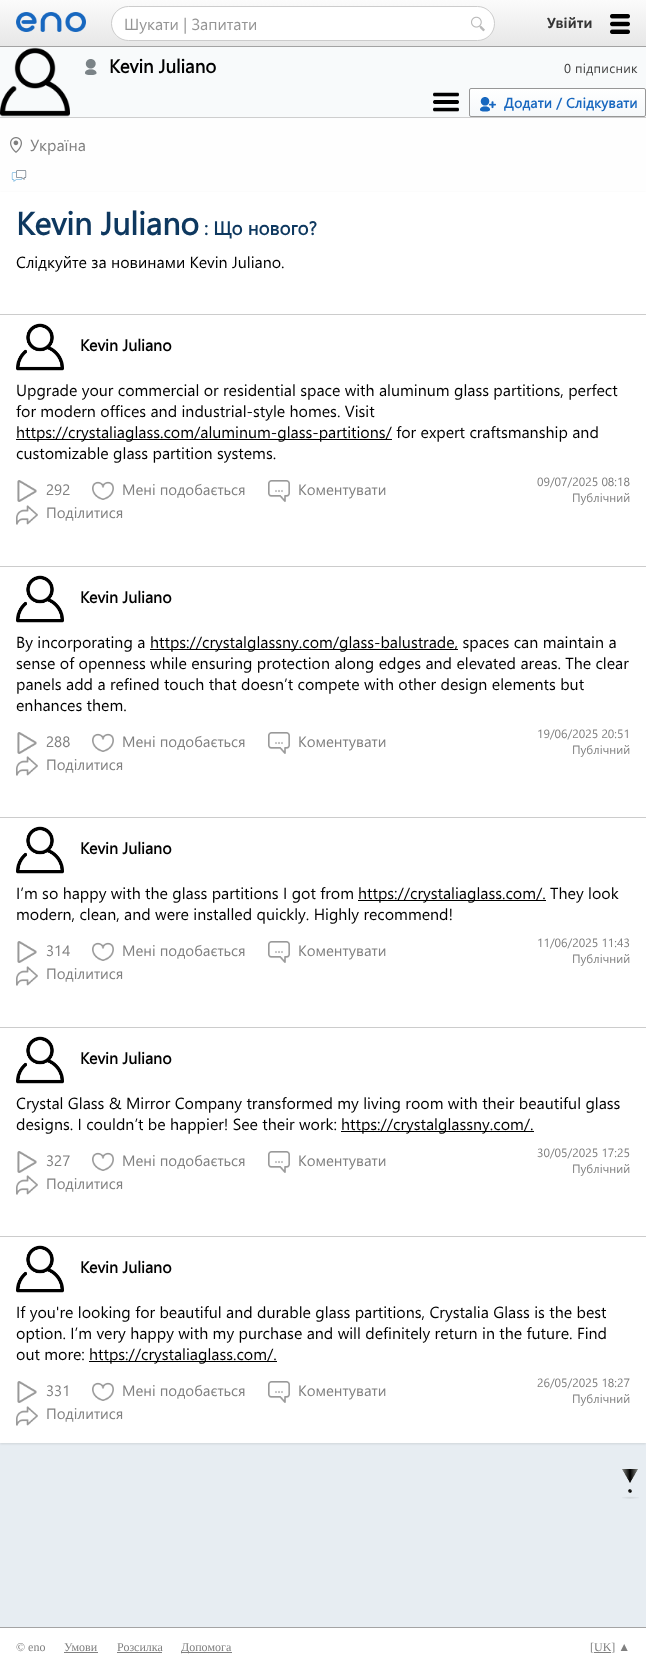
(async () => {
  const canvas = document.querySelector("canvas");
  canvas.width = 646;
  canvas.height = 1676;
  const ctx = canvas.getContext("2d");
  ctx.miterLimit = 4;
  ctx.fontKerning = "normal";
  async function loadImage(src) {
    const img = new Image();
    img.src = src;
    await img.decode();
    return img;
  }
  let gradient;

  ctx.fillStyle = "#ffffff";
  ctx.fillRect(0, 0, 646, 1676);
  gradient = ctx.createLinearGradient(323, 0, 323, 46);
  gradient.addColorStop(0, "#fbfbfb");
  gradient.addColorStop(1, "#e7e7e7");
  ctx.fillStyle = gradient;
  ctx.fillRect(0, 0, 646, 46);
  ctx.fillStyle = "#a4a4a4";
  ctx.fillRect(0, 46, 646, 1);
  ctx.drawImage(await loadImage("img/1.png"), 16, 12, 70, 20);
  ctx.fillStyle = "#ffffff";
  ctx.beginPath();
  ctx.roundRect(111.5, 6.5, 383, 34, 17);
  ctx.fill();
  ctx.strokeStyle = "#cccccc";
  ctx.stroke();
  ctx.drawImage(await loadImage("img/2.png"), 471, 16, 14, 16);
  ctx.drawImage(await loadImage("img/3.png"), 610, 14, 20, 20);
  ctx.fillStyle = "#e7edf2";
  ctx.fillRect(0, 1443, 646, 184);
  ctx.fillStyle = "#eef2f6";
  ctx.fillRect(0, 118, 646, 74);
  ctx.fillStyle = "rgba(77, 77, 77, 0.1)";
  ctx.filter = "blur(1px)";
  ctx.beginPath();
  ctx.rect(0, 48, 646, 70);
  ctx.fill();
  ctx.filter = "none";
  ctx.fillStyle = "#f8fafb";
  ctx.fillRect(0, 47, 646, 70);
  ctx.drawImage(await loadImage("img/4.png"), 0, 47, 70, 70);
  ctx.drawImage(await loadImage("img/5.png"), 85, 59, 12, 16);
  ctx.drawImage(await loadImage("img/6.png"), 433, 92, 26, 20);
  ctx.save();
  ctx.beginPath();
  ctx.roundRect(469, 88, 177, 29, 2);
  ctx.clip();
  gradient = ctx.createLinearGradient(558, 89, 558, 116);
  gradient.addColorStop(0, "#ffffff");
  gradient.addColorStop(1, "#f5f8fa");
  ctx.fillStyle = gradient;
  ctx.fillRect(469, 89, 177, 27);
  ctx.restore();
  ctx.beginPath();
  ctx.roundRect(469.5, 88.5, 176, 28, 1.5);
  ctx.strokeStyle = "#979797";
  ctx.stroke();
  ctx.drawImage(await loadImage("img/7.png"), 480, 97, 16, 15);
  ctx.fillStyle = "rgba(255, 255, 255, 0.9)";
  ctx.fillRect(0, 118, 646, 74);
  ctx.fillStyle = "#cecece";
  ctx.fillRect(0, 117, 646, 1);
  ctx.drawImage(await loadImage("img/8.png"), 10, 137, 12, 16);
  ctx.drawImage(await loadImage("img/9.png"), 11, 170, 16, 12);
  ctx.fillStyle = "rgba(0, 0, 0, 0.1)";
  ctx.filter = "blur(1px)";
  ctx.beginPath();
  ctx.rect(0, 193, 646, 1251);
  ctx.fill();
  ctx.filter = "none";
  ctx.fillStyle = "#ffffff";
  ctx.fillRect(0, 192, 646, 1251);
  ctx.fillStyle = "#cccccc";
  ctx.fillRect(0, 314, 646, 1);
  ctx.drawImage(await loadImage("img/10.png"), 16, 323, 48, 48);
  ctx.fillStyle = "#000000";
  ctx.fillRect(16, 439, 376, 1);
  ctx.drawImage(await loadImage("img/11.png"), 17, 480, 20, 22);
  ctx.drawImage(await loadImage("img/12.png"), 92, 481, 22, 19);
  ctx.drawImage(await loadImage("img/13.png"), 268, 480, 22, 22);
  ctx.drawImage(await loadImage("img/14.png"), 16, 505, 22, 20);
  ctx.fillStyle = "#cccccc";
  ctx.fillRect(0, 566, 646, 1);
  ctx.drawImage(await loadImage("img/15.png"), 16, 575, 48, 48);
  ctx.fillStyle = "#000000";
  ctx.fillRect(150, 649, 308, 1);
  ctx.drawImage(await loadImage("img/11.png"), 17, 732, 20, 22);
  ctx.drawImage(await loadImage("img/12.png"), 92, 733, 22, 19);
  ctx.drawImage(await loadImage("img/13.png"), 268, 732, 22, 22);
  ctx.drawImage(await loadImage("img/14.png"), 16, 756, 22, 20);
  ctx.fillStyle = "#cccccc";
  ctx.fillRect(0, 817, 646, 1);
  ctx.drawImage(await loadImage("img/16.png"), 16, 826, 48, 48);
  ctx.fillStyle = "#000000";
  ctx.fillRect(358, 900, 188, 1);
  ctx.drawImage(await loadImage("img/11.png"), 17, 941, 20, 22);
  ctx.drawImage(await loadImage("img/12.png"), 92, 942, 22, 19);
  ctx.drawImage(await loadImage("img/13.png"), 268, 941, 22, 22);
  ctx.drawImage(await loadImage("img/14.png"), 16, 966, 22, 20);
  ctx.fillStyle = "#cccccc";
  ctx.fillRect(0, 1027, 646, 1);
  ctx.drawImage(await loadImage("img/17.png"), 16, 1036, 48, 48);
  ctx.fillStyle = "#000000";
  ctx.fillRect(341, 1131, 193, 1);
  ctx.drawImage(await loadImage("img/11.png"), 17, 1151, 20, 22);
  ctx.drawImage(await loadImage("img/12.png"), 92, 1152, 22, 19);
  ctx.drawImage(await loadImage("img/13.png"), 268, 1151, 22, 22);
  ctx.drawImage(await loadImage("img/14.png"), 16, 1175, 22, 20);
  ctx.fillStyle = "#cccccc";
  ctx.fillRect(0, 1236, 646, 1);
  ctx.drawImage(await loadImage("img/18.png"), 16, 1245, 48, 48);
  ctx.fillStyle = "#000000";
  ctx.fillRect(89, 1361, 188, 1);
  ctx.drawImage(await loadImage("img/11.png"), 17, 1381, 20, 22);
  ctx.drawImage(await loadImage("img/12.png"), 92, 1382, 22, 19);
  ctx.drawImage(await loadImage("img/13.png"), 268, 1381, 22, 22);
  ctx.drawImage(await loadImage("img/14.png"), 16, 1406, 22, 20);
  ctx.drawImage(await loadImage("img/19.png"), 622, 1469, 17, 30);
  for (const [x, y, w, h, color] of [
    [0, 1627, 646, 1, "#a4a4a4"],
    [64, 1652, 34, 1, "#808080"],
    [117, 1652, 45, 1, "#808080"],
    [181, 1652, 51, 1, "#808080"],
    [594, 1652, 17, 1, "#808080"],
  ]) {
    ctx.fillStyle = color;
    ctx.fillRect(x, y, w, h);
  }
  ctx.font = "16px Segoe UI";
  ctx.fillStyle = "#959595";
  ctx.fillText("Шукати | Запитати", 124, 30);
  ctx.letterSpacing = "0.25px";
  ctx.font = "bold 16px Calibri";
  ctx.fillStyle = "#353535";
  ctx.fillText("Увійти", 547, 28);
  ctx.letterSpacing = "0px";
  ctx.font = "bold 18.75px Segoe UI";
  ctx.fillStyle = "#000000";
  ctx.fillText("Kevin Juliano", 109, 73);
  ctx.letterSpacing = "0.25px";
  ctx.font = "13px Segoe UI";
  ctx.fillStyle = "#424242";
  ctx.fillText("0 підписник", 564, 73);
  ctx.font = "bold 14px Segoe UI";
  ctx.fillStyle = "#1767bf";
  ctx.fillText("Додати / Слідкувати", 504, 108);
  ctx.letterSpacing = "0px";
  ctx.font = "16px Segoe UI";
  ctx.fillStyle = "#808080";
  ctx.fillText("Україна", 30, 151);
  ctx.font = "bold 32px Segoe UI";
  ctx.fillStyle = "#0e385f";
  ctx.fillText("Kevin Juliano", 16, 235);
  ctx.font = "bold 18.75px Segoe UI";
  ctx.fillText(": Що нового?", 204, 235);
  ctx.font = "16px Segoe UI";
  ctx.fillStyle = "#000000";
  ctx.fillText("Слідкуйте за новинами Kevin Juliano.", 16, 268);
  ctx.font = "bold 16px Segoe UI";
  ctx.fillText("Kevin Juliano", 80, 351);
  ctx.font = "16px Segoe UI";
  for (const [text, x, y] of [
    ["Upgrade your commercial or residential space with aluminum glass partitions, perfect", 16, 396],
    ["for modern offices and industrial-style homes. Visit", 16, 417],
    ["https://crystaliaglass.com/aluminum-glass-partitions/ for expert craftsmanship and", 16, 438],
    ["customizable glass partition systems.", 16, 459],
  ]) {
    ctx.fillText(text, x, y);
  }
  ctx.font = "15px Segoe UI";
  ctx.fillStyle = "#808080";
  for (const [text, x, y] of [
    ["292", 46, 495],
    ["Мені подобається", 122, 495],
    ["Коментувати", 298, 495],
  ]) {
    ctx.fillText(text, x, y);
  }
  ctx.font = "12px Segoe UI";
  ctx.fillText("09/07/2025 08:18", 537, 486);
  ctx.fillText("Публічний", 572, 502);
  ctx.font = "15px Segoe UI";
  ctx.fillText("Поділитися", 46, 518);
  ctx.font = "bold 16px Segoe UI";
  ctx.fillStyle = "#000000";
  ctx.fillText("Kevin Juliano", 80, 603);
  ctx.font = "16px Segoe UI";
  for (const [text, x, y] of [
    ["By incorporating a", 16, 648],
    ["https://crystalglassny.com/glass-balustrade, spaces can maintain a", 150, 648],
    ["sense of openness while ensuring protection along edges and elevated areas. The clear", 16, 669],
    ["panels add a refined touch that doesn’t compete with other design elements but", 16, 690],
    ["enhances them.", 16, 711],
  ]) {
    ctx.fillText(text, x, y);
  }
  ctx.font = "15px Segoe UI";
  ctx.fillStyle = "#808080";
  for (const [text, x, y] of [
    ["288", 46, 747],
    ["Мені подобається", 122, 747],
    ["Коментувати", 298, 747],
  ]) {
    ctx.fillText(text, x, y);
  }
  ctx.font = "12px Segoe UI";
  ctx.fillText("19/06/2025 20:51", 537, 738);
  ctx.fillText("Публічний", 572, 754);
  ctx.font = "15px Segoe UI";
  ctx.fillText("Поділитися", 46, 770);
  ctx.font = "bold 16px Segoe UI";
  ctx.fillStyle = "#000000";
  ctx.fillText("Kevin Juliano", 80, 854);
  ctx.font = "16px Segoe UI";
  for (const [text, x, y] of [
    ["I’m so happy with the glass partitions I got from", 16, 899],
    ["https://crystaliaglass.com/. They look", 358, 899],
    ["modern, clean, and were installed quickly. Highly recommend!", 16, 920],
  ]) {
    ctx.fillText(text, x, y);
  }
  ctx.font = "15px Segoe UI";
  ctx.fillStyle = "#808080";
  for (const [text, x, y] of [
    ["314", 46, 956],
    ["Мені подобається", 122, 956],
    ["Коментувати", 298, 956],
  ]) {
    ctx.fillText(text, x, y);
  }
  ctx.font = "12px Segoe UI";
  ctx.fillText("11/06/2025 11:43", 537, 947);
  ctx.fillText("Публічний", 572, 963);
  ctx.font = "15px Segoe UI";
  ctx.fillText("Поділитися", 46, 979);
  ctx.font = "bold 16px Segoe UI";
  ctx.fillStyle = "#000000";
  ctx.fillText("Kevin Juliano", 80, 1064);
  ctx.font = "16px Segoe UI";
  for (const [text, x, y] of [
    ["Crystal Glass & Mirror Company transformed my living room with their beautiful glass", 16, 1109],
    ["designs. I couldn’t be happier! See their work:", 16, 1130],
    ["https://crystalglassny.com/.", 341, 1130],
  ]) {
    ctx.fillText(text, x, y);
  }
  ctx.font = "15px Segoe UI";
  ctx.fillStyle = "#808080";
  for (const [text, x, y] of [
    ["327", 46, 1166],
    ["Мені подобається", 122, 1166],
    ["Коментувати", 298, 1166],
  ]) {
    ctx.fillText(text, x, y);
  }
  ctx.font = "12px Segoe UI";
  ctx.fillText("30/05/2025 17:25", 537, 1157);
  ctx.fillText("Публічний", 572, 1173);
  ctx.font = "15px Segoe UI";
  ctx.fillText("Поділитися", 46, 1189);
  ctx.font = "bold 16px Segoe UI";
  ctx.fillStyle = "#000000";
  ctx.fillText("Kevin Juliano", 80, 1273);
  ctx.font = "16px Segoe UI";
  for (const [text, x, y] of [
    ["If you're looking for beautiful and durable glass partitions, Crystalia Glass is the best", 16, 1318],
    ["option. I’m very happy with my purchase and will definitely return in the future. Find", 16, 1339],
    ["out more:", 16, 1360],
    ["https://crystaliaglass.com/.", 89, 1360],
  ]) {
    ctx.fillText(text, x, y);
  }
  ctx.font = "15px Segoe UI";
  ctx.fillStyle = "#808080";
  for (const [text, x, y] of [
    ["331", 46, 1396],
    ["Мені подобається", 122, 1396],
    ["Коментувати", 298, 1396],
  ]) {
    ctx.fillText(text, x, y);
  }
  ctx.font = "12px Segoe UI";
  ctx.fillText("26/05/2025 18:27", 537, 1387);
  ctx.fillText("Публічний", 572, 1403);
  ctx.font = "15px Segoe UI";
  ctx.fillText("Поділитися", 46, 1419);
  ctx.font = "12px Liberation Serif";
  for (const [text, x, y] of [
    ["© eno", 16, 1651],
    ["Умови", 64, 1651],
    ["Розсилка", 117, 1651],
    ["Допомога", 181, 1651],
    ["[UK] ▲", 590, 1651],
  ]) {
    ctx.fillText(text, x, y);
  }
})();
